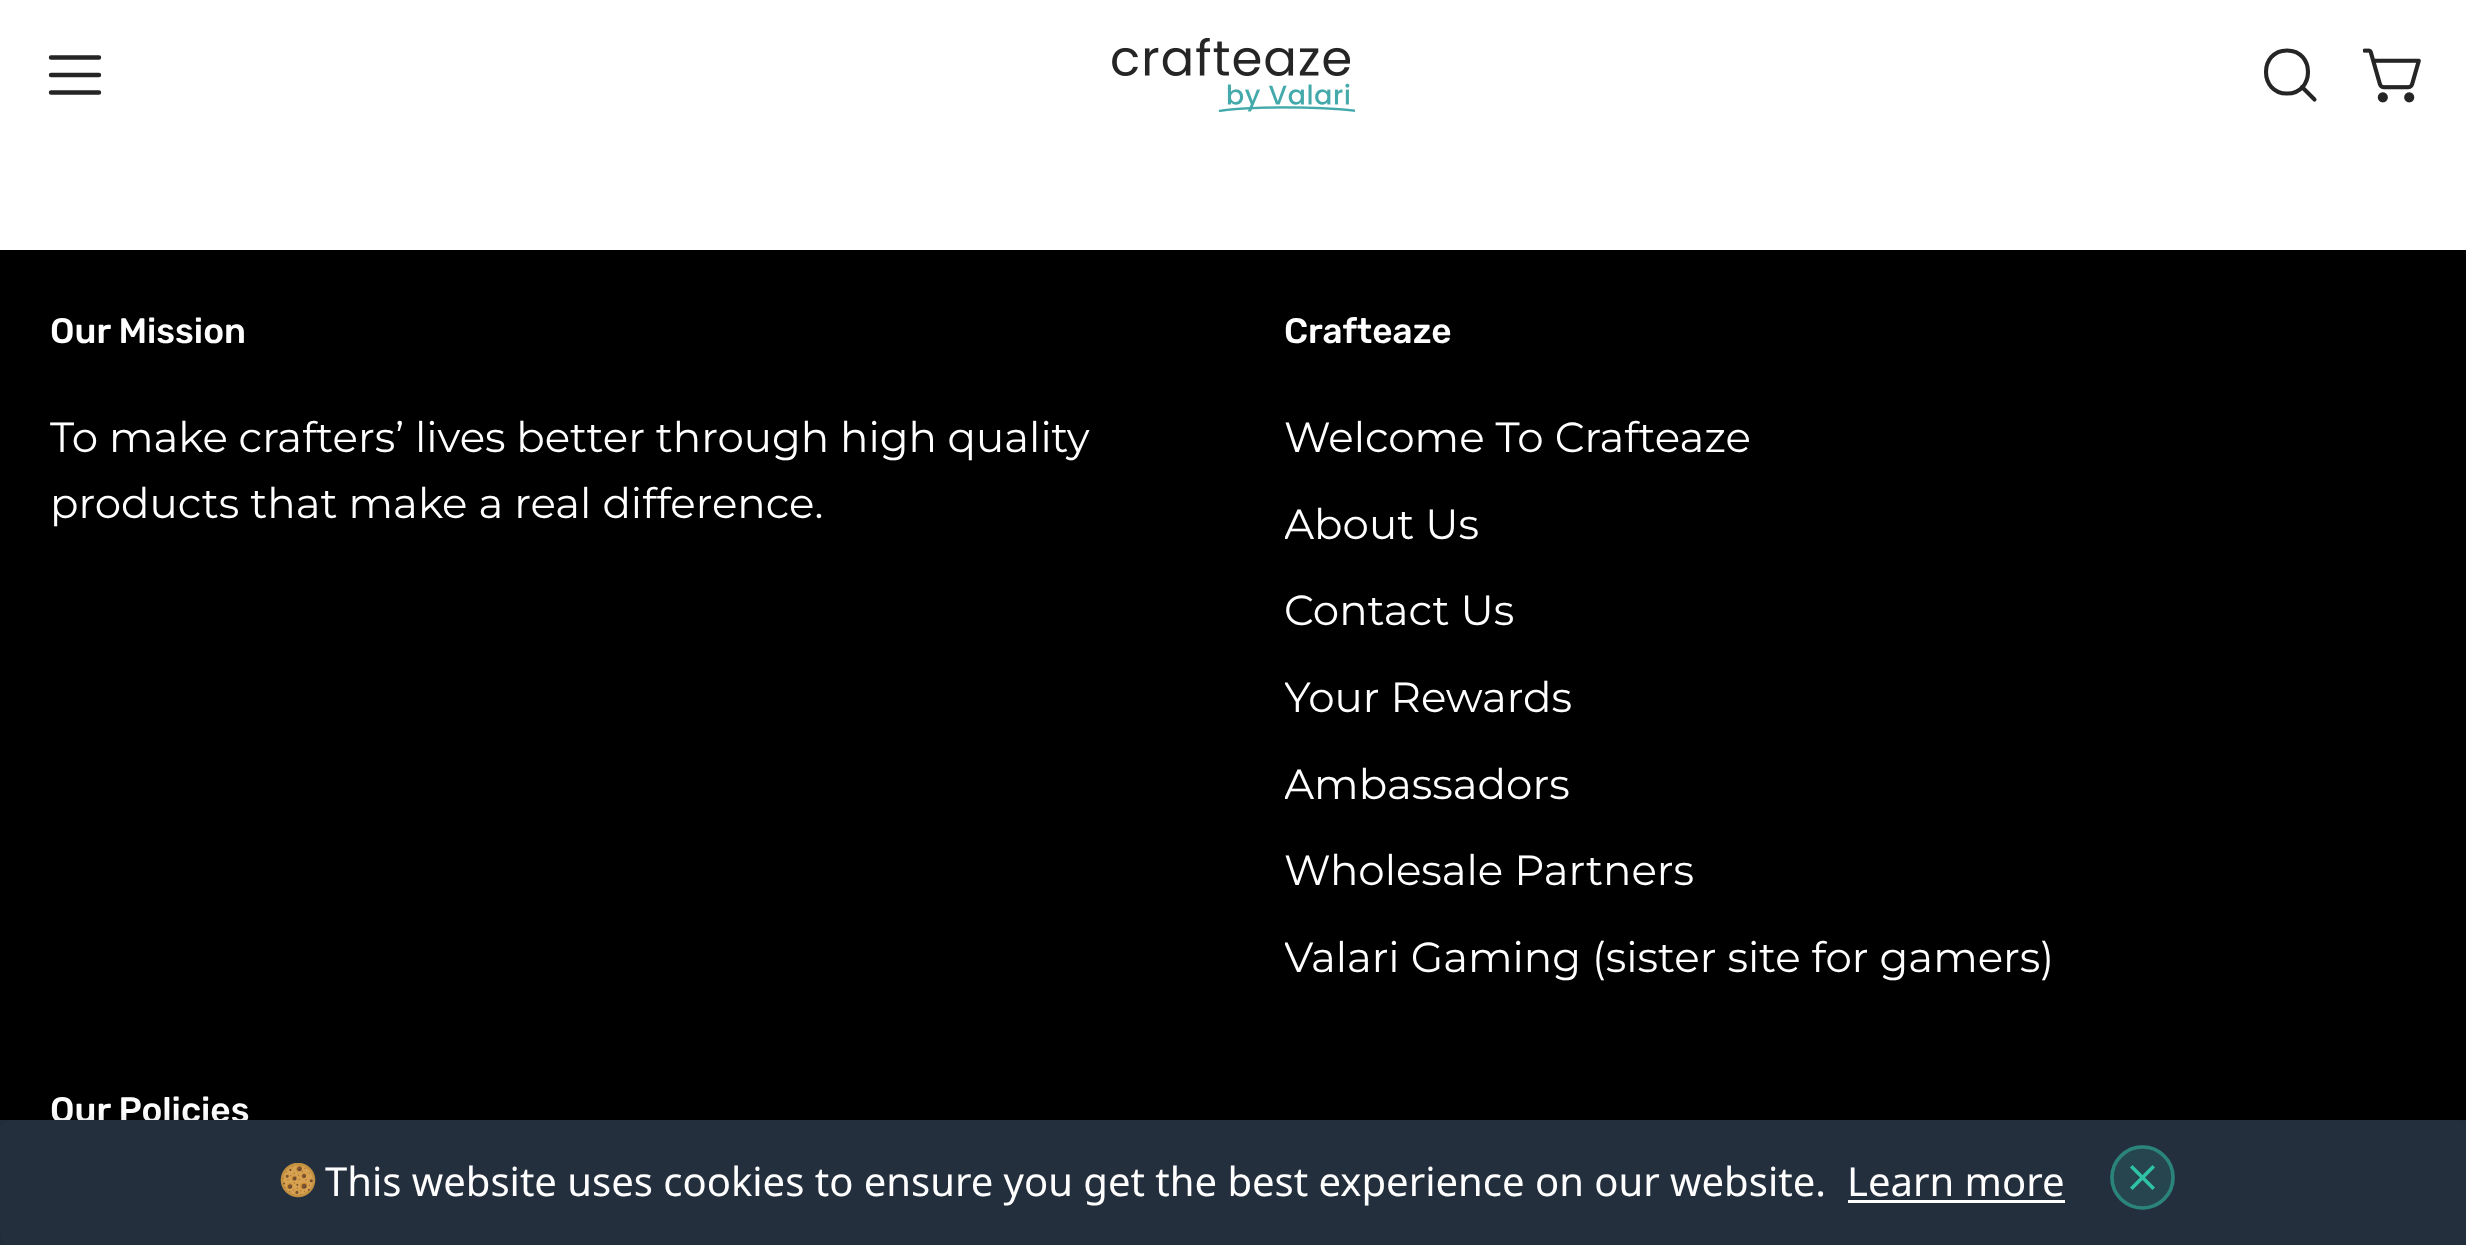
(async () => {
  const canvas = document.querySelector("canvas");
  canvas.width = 2466;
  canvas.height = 1245;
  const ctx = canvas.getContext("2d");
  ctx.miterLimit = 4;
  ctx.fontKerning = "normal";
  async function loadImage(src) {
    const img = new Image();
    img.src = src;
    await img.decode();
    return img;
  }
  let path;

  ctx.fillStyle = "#ffffff";
  ctx.fillRect(0, 0, 2466, 1245);
  path = new Path2D("M51 75H99M51 57.5H99M51 92.5H99");
  ctx.strokeStyle = "#252525";
  ctx.lineWidth = 4.4;
  ctx.lineCap = "round";
  ctx.lineJoin = "round";
  ctx.stroke(path);
  ctx.drawImage(await loadImage("img/1.png"), 1112, 38, 243, 75);
  path = new Path2D("M2287 93.5C2315 93.5 2315 50.5 2287 50.5C2259 50.5 2259 93.5 2287 93.5ZM2302 87L2314.5 99.5");
  ctx.lineWidth = 4.1;
  ctx.stroke(path);
  ctx.drawImage(await loadImage("img/2.png"), 2363, 48, 58, 55);
  ctx.fillStyle = "#000000";
  ctx.fillRect(0, 250, 2466, 870);
  ctx.font = "500 35.25px Rubik";
  ctx.fillStyle = "#ffffff";
  ctx.fillText("Our Mission", 50, 343);
  ctx.wordSpacing = "-0.25px";
  ctx.font = "100 42px Montserrat";
  ctx.fillText("To make crafters’ lives better through high quality", 50, 452);
  ctx.wordSpacing = "0px";
  ctx.fillText("products that make a real difference.", 50, 518);
  ctx.font = "500 35.25px Rubik";
  ctx.fillText("Crafteaze", 1284, 343);
  ctx.font = "100 42px Montserrat";
  ctx.fillText("Welcome To Crafteaze", 1284, 452);
  ctx.save();
  ctx.beginPath();
  ctx.rect(1285, 405, 1133, 585);
  ctx.clip();
  ctx.fillText("About Us", 1284, 539);
  ctx.restore();
  ctx.fillText("Contact Us", 1284, 625);
  ctx.save();
  ctx.beginPath();
  ctx.rect(1285, 405, 1133, 585);
  ctx.clip();
  ctx.fillText("Your Rewards", 1284, 712);
  ctx.fillText("Ambassadors", 1284, 799);
  ctx.restore();
  ctx.fillText("Wholesale Partners", 1284, 885);
  ctx.save();
  ctx.beginPath();
  ctx.rect(1285, 405, 1133, 585);
  ctx.clip();
  ctx.fillText("Valari Gaming (sister site for gamers)", 1284, 972);
  ctx.restore();
  ctx.font = "500 35.25px Rubik";
  ctx.fillText("Our Policies", 50, 1122);
  ctx.fillStyle = "#242f3e";
  ctx.fillRect(0, 1120, 2466, 125);
  ctx.save();
  path = new Path2D("M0 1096H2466V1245H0ZM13 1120H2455C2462 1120 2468 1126 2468 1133V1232C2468 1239 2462 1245 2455 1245H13C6 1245 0 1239 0 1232V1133C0 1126 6 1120 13 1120Z");
  ctx.clip(path, "evenodd");
  ctx.fillStyle = "rgba(0, 0, 0, 0.12)";
  ctx.filter = "blur(7.5px)";
  ctx.beginPath();
  ctx.roundRect(0, 1120, 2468, 125, 13);
  ctx.fill();
  ctx.filter = "none";
  ctx.restore();
  ctx.drawImage(await loadImage("img/3.png"), 280, 1163, 36, 35);
  ctx.font = "40px Noto Sans";
  ctx.fillStyle = "#ffffff";
  ctx.fillText("This website uses cookies to ensure you get the best experience on our website.", 325, 1196);
  ctx.fillText("Learn more", 1847, 1196);
  ctx.fillRect(1848, 1200, 217, 3);
  ctx.fillStyle = "#26454e";
  ctx.beginPath();
  ctx.arc(2142.5, 1177.5, 32.5, 0, Math.PI * 2);
  ctx.fill();
  ctx.beginPath();
  ctx.arc(2142.5, 1177.5, 30.5, 0, Math.PI * 2);
  ctx.strokeStyle = "rgba(47, 195, 166, 0.5)";
  ctx.lineWidth = 3.6;
  ctx.stroke();
  ctx.fillStyle = "#2fc3a6";
  path = new Path2D("M2155 1167.5L2152.5 1165L2142.5 1175L2132.5 1165L2130 1167.5L2140 1177.5L2130 1187.5L2132.5 1190L2142.5 1180L2152.5 1190L2155 1187.5L2145 1177.5Z");
  ctx.fill(path);
})();
